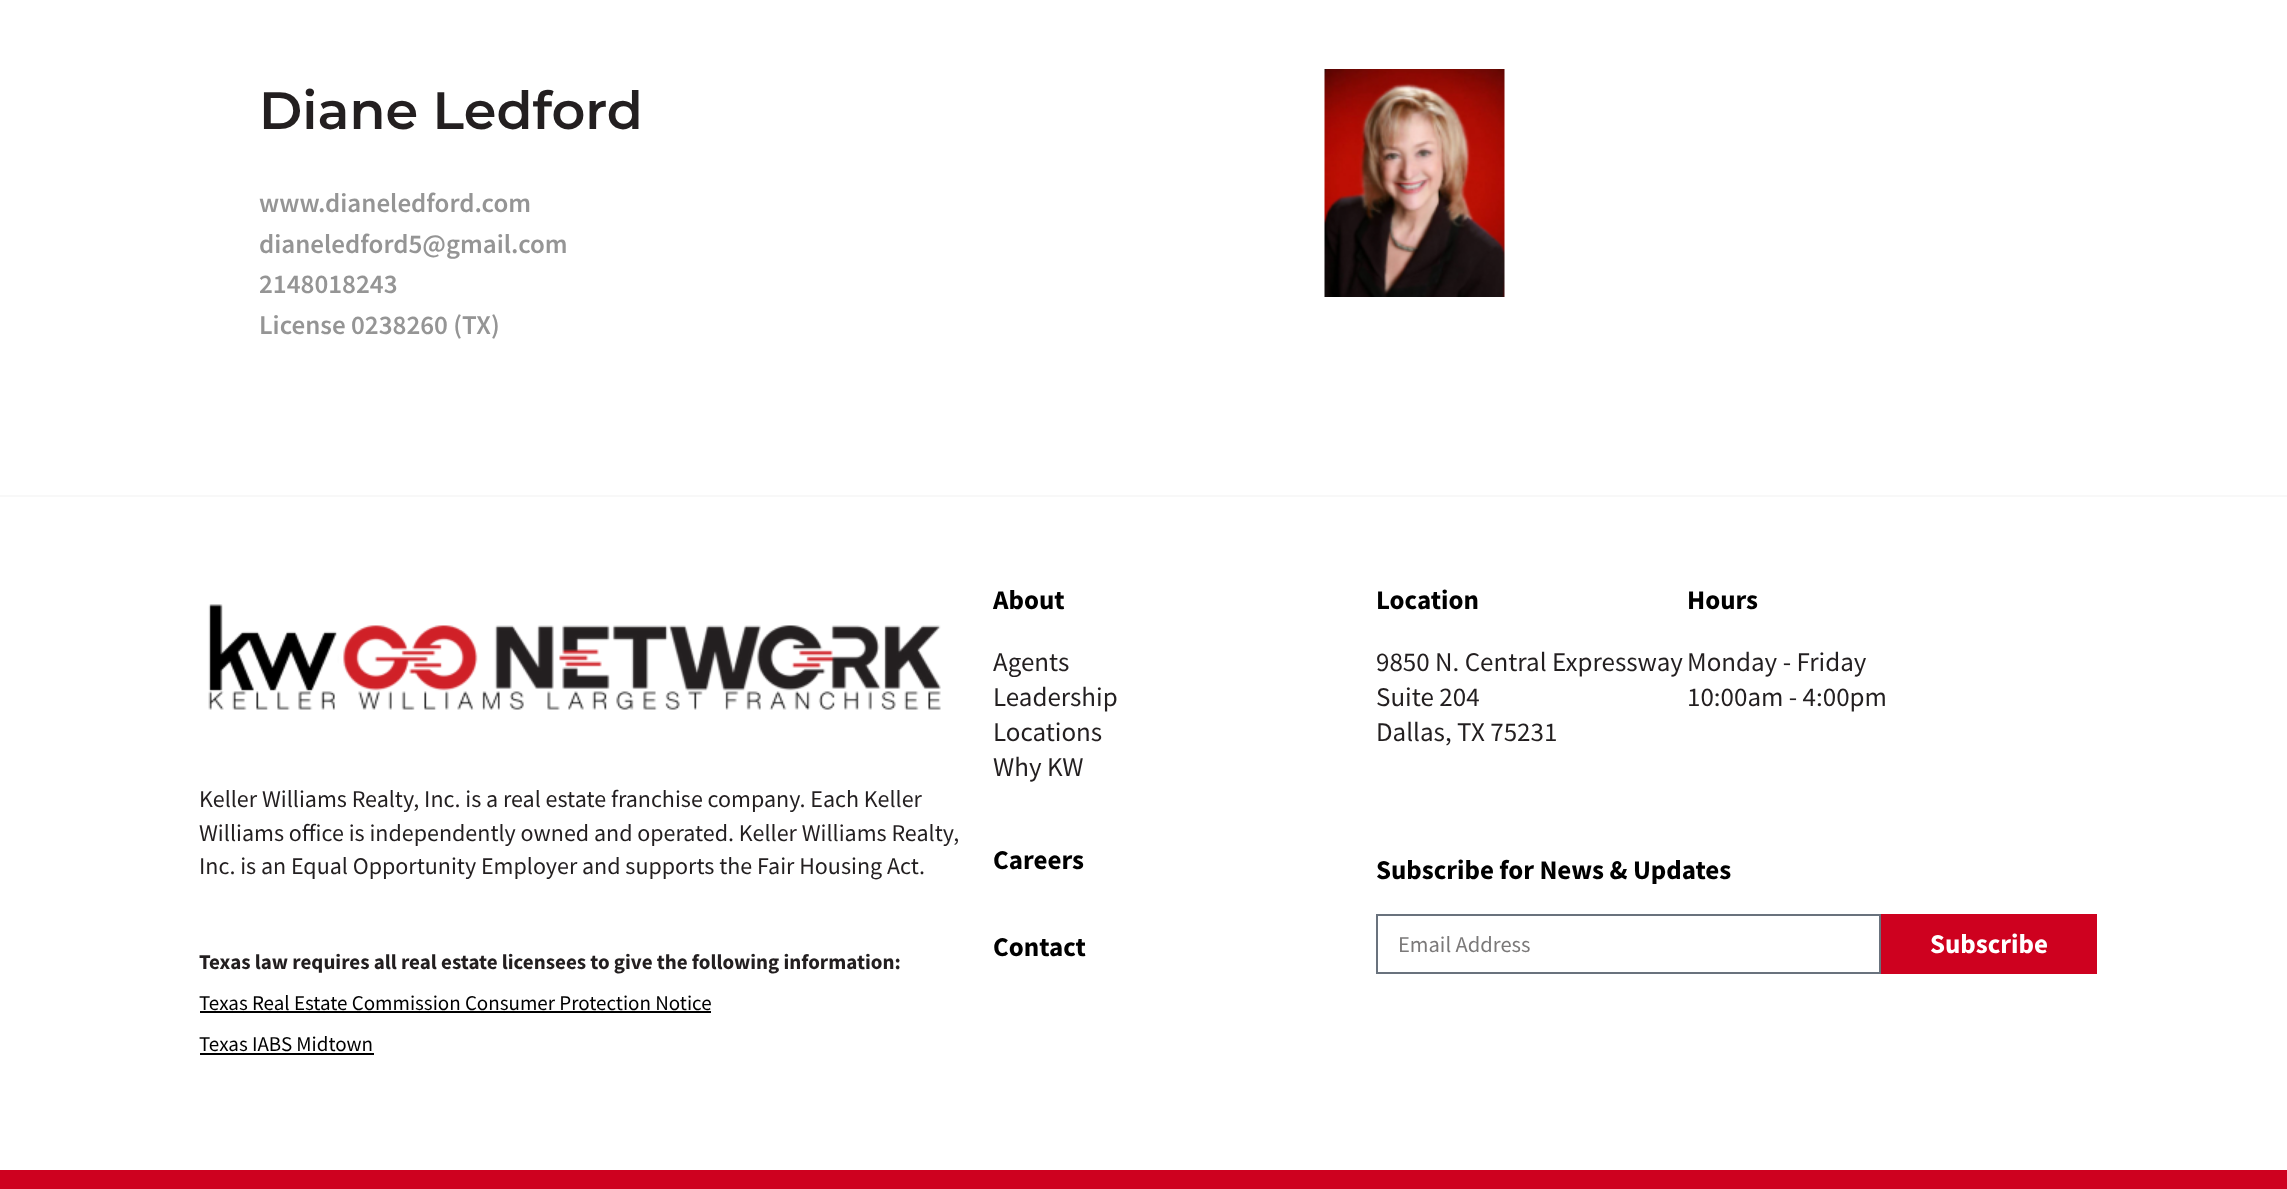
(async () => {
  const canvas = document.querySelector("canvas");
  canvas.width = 2287;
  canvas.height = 1189;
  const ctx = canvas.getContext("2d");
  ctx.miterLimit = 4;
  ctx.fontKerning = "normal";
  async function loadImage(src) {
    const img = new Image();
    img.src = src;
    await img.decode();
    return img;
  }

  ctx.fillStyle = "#ffffff";
  ctx.fillRect(0, 0, 2287, 1189);
  ctx.drawImage(await loadImage("img/1.png"), 1324, 69, 181, 228);
  ctx.fillStyle = "#f8f8f8";
  ctx.fillRect(0, 495, 2287, 2);
  ctx.drawImage(await loadImage("img/2.png"), 208, 604, 733, 106);
  ctx.fillStyle = "#000000";
  ctx.fillRect(200, 1011, 511, 2);
  ctx.fillRect(200, 1053, 174, 2);
  ctx.strokeStyle = "#69727d";
  ctx.lineWidth = 2;
  ctx.strokeRect(1377, 915, 503, 58);
  ctx.fillStyle = "#ce011f";
  ctx.fillRect(1881, 914, 216, 60);
  ctx.fillRect(0, 1170, 2287, 19);
  ctx.font = "600 52.5px Montserrat";
  ctx.fillStyle = "#231f20";
  ctx.fillText("Diane Ledford", 259, 129);
  ctx.font = "600 27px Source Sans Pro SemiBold";
  ctx.fillStyle = "#959595";
  for (const [text, x, y] of [
    ["www.dianeledford.com", 259, 212],
    ["dianeledford5@gmail.com", 259, 253],
    ["2148018243", 259, 293],
    ["License 0238260 (TX)", 259, 334],
  ]) {
    ctx.fillText(text, x, y);
  }
  ctx.font = "24px Source Sans Pro";
  ctx.fillStyle = "#231f20";
  for (const [text, x, y] of [
    ["Keller Williams Realty, Inc. is a real estate franchise company. Each Keller", 199, 807],
    ["Williams office is independently owned and operated. Keller Williams Realty,", 199, 841],
    ["Inc. is an Equal Opportunity Employer and supports the Fair Housing Act.", 199, 874],
  ]) {
    ctx.fillText(text, x, y);
  }
  ctx.font = "bold 21px Source Sans Pro";
  ctx.fillText("Texas law requires all real estate licensees to give the following information:", 199, 969);
  ctx.font = "21px Source Sans Pro";
  ctx.fillStyle = "#000000";
  ctx.fillText("Texas Real Estate Commission Consumer Protection Notice", 199, 1010);
  ctx.fillText("Texas IABS Midtown", 199, 1051);
  ctx.font = "bold 27px Source Sans Pro";
  ctx.fillText("About", 993, 609);
  ctx.font = "27px Source Sans Pro";
  ctx.fillStyle = "#231f20";
  for (const [text, x, y] of [
    ["Agents", 993, 671],
    ["Leadership", 993, 706],
    ["Locations", 993, 741],
    ["Why KW", 993, 776],
  ]) {
    ctx.fillText(text, x, y);
  }
  ctx.font = "bold 27px Source Sans Pro";
  ctx.fillStyle = "#000000";
  for (const [text, x, y] of [
    ["Careers", 993, 869],
    ["Contact", 993, 956],
    ["Location", 1376, 609],
  ]) {
    ctx.fillText(text, x, y);
  }
  ctx.font = "27px Source Sans Pro";
  ctx.fillStyle = "#231f20";
  for (const [text, x, y] of [
    ["9850 N. Central Expressway", 1376, 671],
    ["Suite 204", 1376, 706],
    ["Dallas, TX 75231", 1376, 741],
  ]) {
    ctx.fillText(text, x, y);
  }
  ctx.font = "bold 27px Source Sans Pro";
  ctx.fillStyle = "#000000";
  ctx.fillText("Hours", 1687, 609);
  ctx.font = "27px Source Sans Pro";
  ctx.fillStyle = "#231f20";
  ctx.fillText("Monday - Friday", 1687, 671);
  ctx.fillText("10:00am - 4:00pm", 1687, 706);
  ctx.font = "bold 27px Source Sans Pro";
  ctx.fillStyle = "#000000";
  ctx.fillText("Subscribe for News & Updates", 1376, 879);
  ctx.font = "22.5px Source Sans Pro";
  ctx.fillStyle = "#7b7979";
  ctx.fillText("Email Address", 1398, 952);
  ctx.font = "bold 27px Source Sans Pro";
  ctx.fillStyle = "#ffffff";
  ctx.fillText("Subscribe", 1930, 953);
})();
